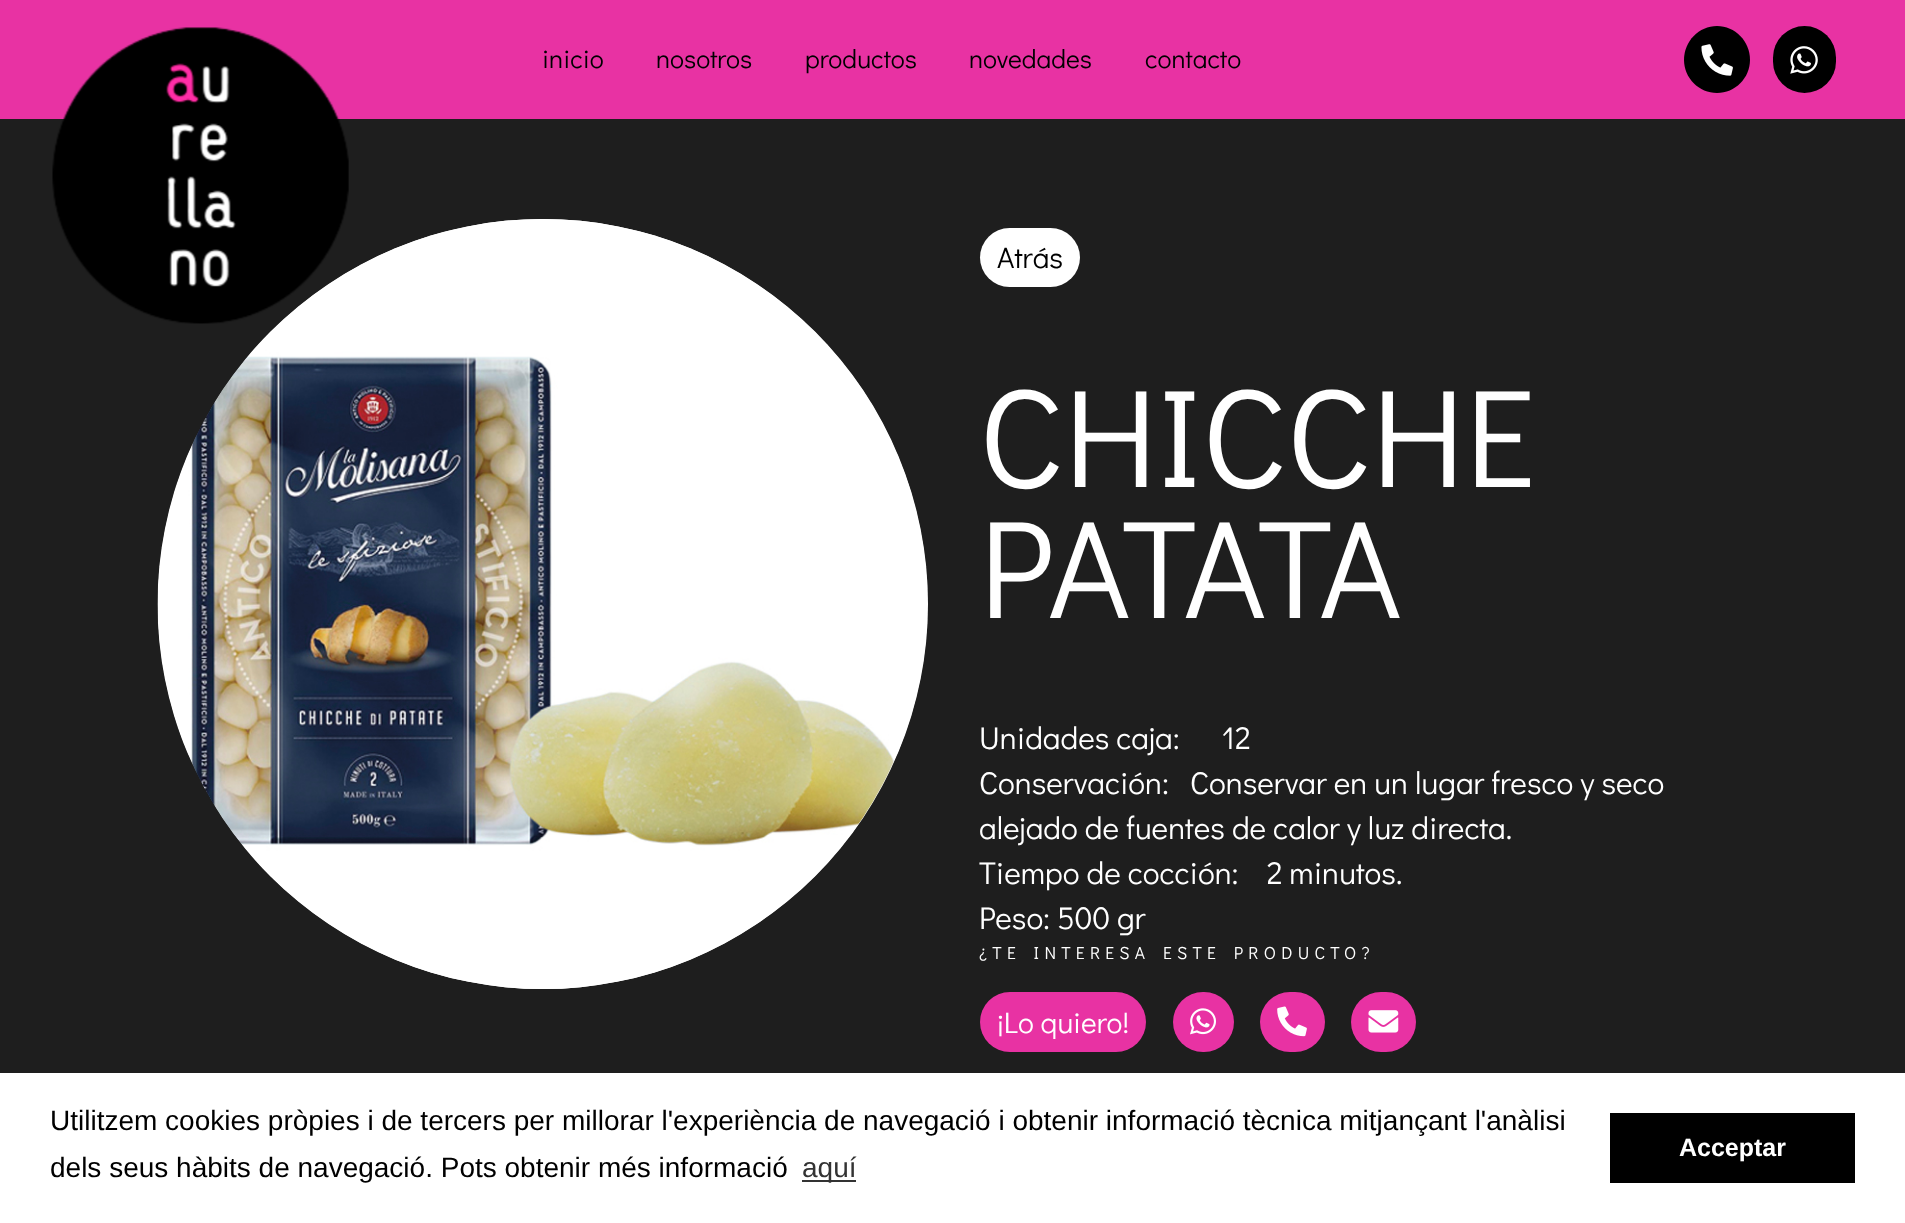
(async () => {
  const canvas = document.querySelector("canvas");
  canvas.width = 1905;
  canvas.height = 1223;
  const ctx = canvas.getContext("2d");
  ctx.miterLimit = 4;
  ctx.fontKerning = "normal";
  async function loadImage(src) {
    const img = new Image();
    img.src = src;
    await img.decode();
    return img;
  }
  let path;

  ctx.fillStyle = "#1e1e1e";
  ctx.fillRect(0, 0, 1905, 1223);
  ctx.fillStyle = "#e832a3";
  ctx.fillRect(0, 0, 1905, 119);
  ctx.fillStyle = "#ffffff";
  ctx.beginPath();
  ctx.arc(543, 604, 385, 0, Math.PI * 2);
  ctx.fill();
  ctx.drawImage(await loadImage("img/4.png"), 157, 219, 771, 770);
  ctx.drawImage(await loadImage("img/1.png"), 52, 27, 297, 297);
  ctx.fillStyle = "#000000";
  path = new Path2D("M1717 26C1699 26 1684 41 1684 60C1684 78 1699 93 1717 93C1735 93 1750 78 1750 60C1750 41 1735 26 1717 26Z");
  ctx.fill(path);
  ctx.drawImage(await loadImage("img/2.png"), 1701, 44, 32, 32);
  ctx.beginPath();
  ctx.roundRect(1773, 26, 63, 67, 31.5);
  ctx.fill();
  ctx.drawImage(await loadImage("img/3.png"), 1790, 46, 28, 28);
  ctx.fillStyle = "#ffffff";
  ctx.beginPath();
  ctx.roundRect(980, 228, 100, 59, 29.5);
  ctx.fill();
  ctx.fillStyle = "#e832a3";
  ctx.beginPath();
  ctx.roundRect(980, 992, 166, 60, 30);
  ctx.fill();
  ctx.beginPath();
  ctx.roundRect(1173, 992, 61, 60, 30);
  ctx.fill();
  ctx.drawImage(await loadImage("img/5.png"), 1190, 1008, 26, 27);
  ctx.beginPath();
  ctx.roundRect(1260, 992, 65, 60, 30);
  ctx.fill();
  ctx.drawImage(await loadImage("img/6.png"), 1277, 1006, 30, 31);
  ctx.beginPath();
  ctx.roundRect(1351, 992, 65, 60, 30);
  ctx.fill();
  ctx.drawImage(await loadImage("img/7.png"), 1368, 1010, 31, 23);
  for (const [x, y, w, h, color] of [
    [0, 1073, 1905, 150, "#ffffff"],
    [802, 1180, 54, 2, "#333333"],
    [1610, 1113, 245, 70, "#000000"],
  ]) {
    ctx.fillStyle = color;
    ctx.fillRect(x, y, w, h);
  }
  ctx.font = "26.25px Didact Gothic";
  for (const [text, x, y] of [
    ["inicio", 542, 68],
    ["nosotros", 656, 68],
    ["productos", 805, 68],
    ["novedades", 969, 68],
    ["contacto", 1145, 68],
  ]) {
    ctx.fillText(text, x, y);
  }
  ctx.font = "29.75px Didact Gothic";
  ctx.fillText("Atrás", 997, 268);
  ctx.font = "140px Didact Gothic";
  ctx.fillStyle = "#ffffff";
  ctx.fillText("CHICCHE", 979, 487);
  ctx.fillText("PATATA", 979, 618);
  ctx.font = "31.5px Didact Gothic";
  for (const [text, x, y] of [
    ["Unidades caja:      12", 979, 749],
    ["Conservación:   Conservar en un lugar fresco y seco", 979, 794],
    ["alejado de fuentes de calor y luz directa.", 979, 839],
    ["Tiempo de cocción:    2 minutos.", 979, 884],
    ["Peso: 500 gr", 979, 929],
  ]) {
    ctx.fillText(text, x, y);
  }
  ctx.letterSpacing = "5.25px";
  ctx.font = "17.5px Didact Gothic";
  ctx.fillText("¿TE INTERESA ESTE PRODUCTO?", 979, 959);
  ctx.letterSpacing = "0px";
  ctx.font = "29.75px Didact Gothic";
  ctx.fillText("¡Lo quiero!", 997, 1033);
  ctx.font = "28px Liberation Sans";
  ctx.fillStyle = "#000000";
  ctx.fillText("Utilitzem cookies pròpies i de tercers per millorar l'experiència de navegació i obtenir informació tècnica mitjançant l'anàlisi", 50, 1130);
  ctx.fillText("dels seus hàbits de navegació. Pots obtenir més informació", 50, 1177);
  ctx.fillStyle = "#333333";
  ctx.fillText("aquí", 802, 1177);
  ctx.font = "bold 25px Liberation Sans";
  ctx.fillStyle = "#ffffff";
  ctx.fillText("Acceptar", 1679, 1156);
})();
